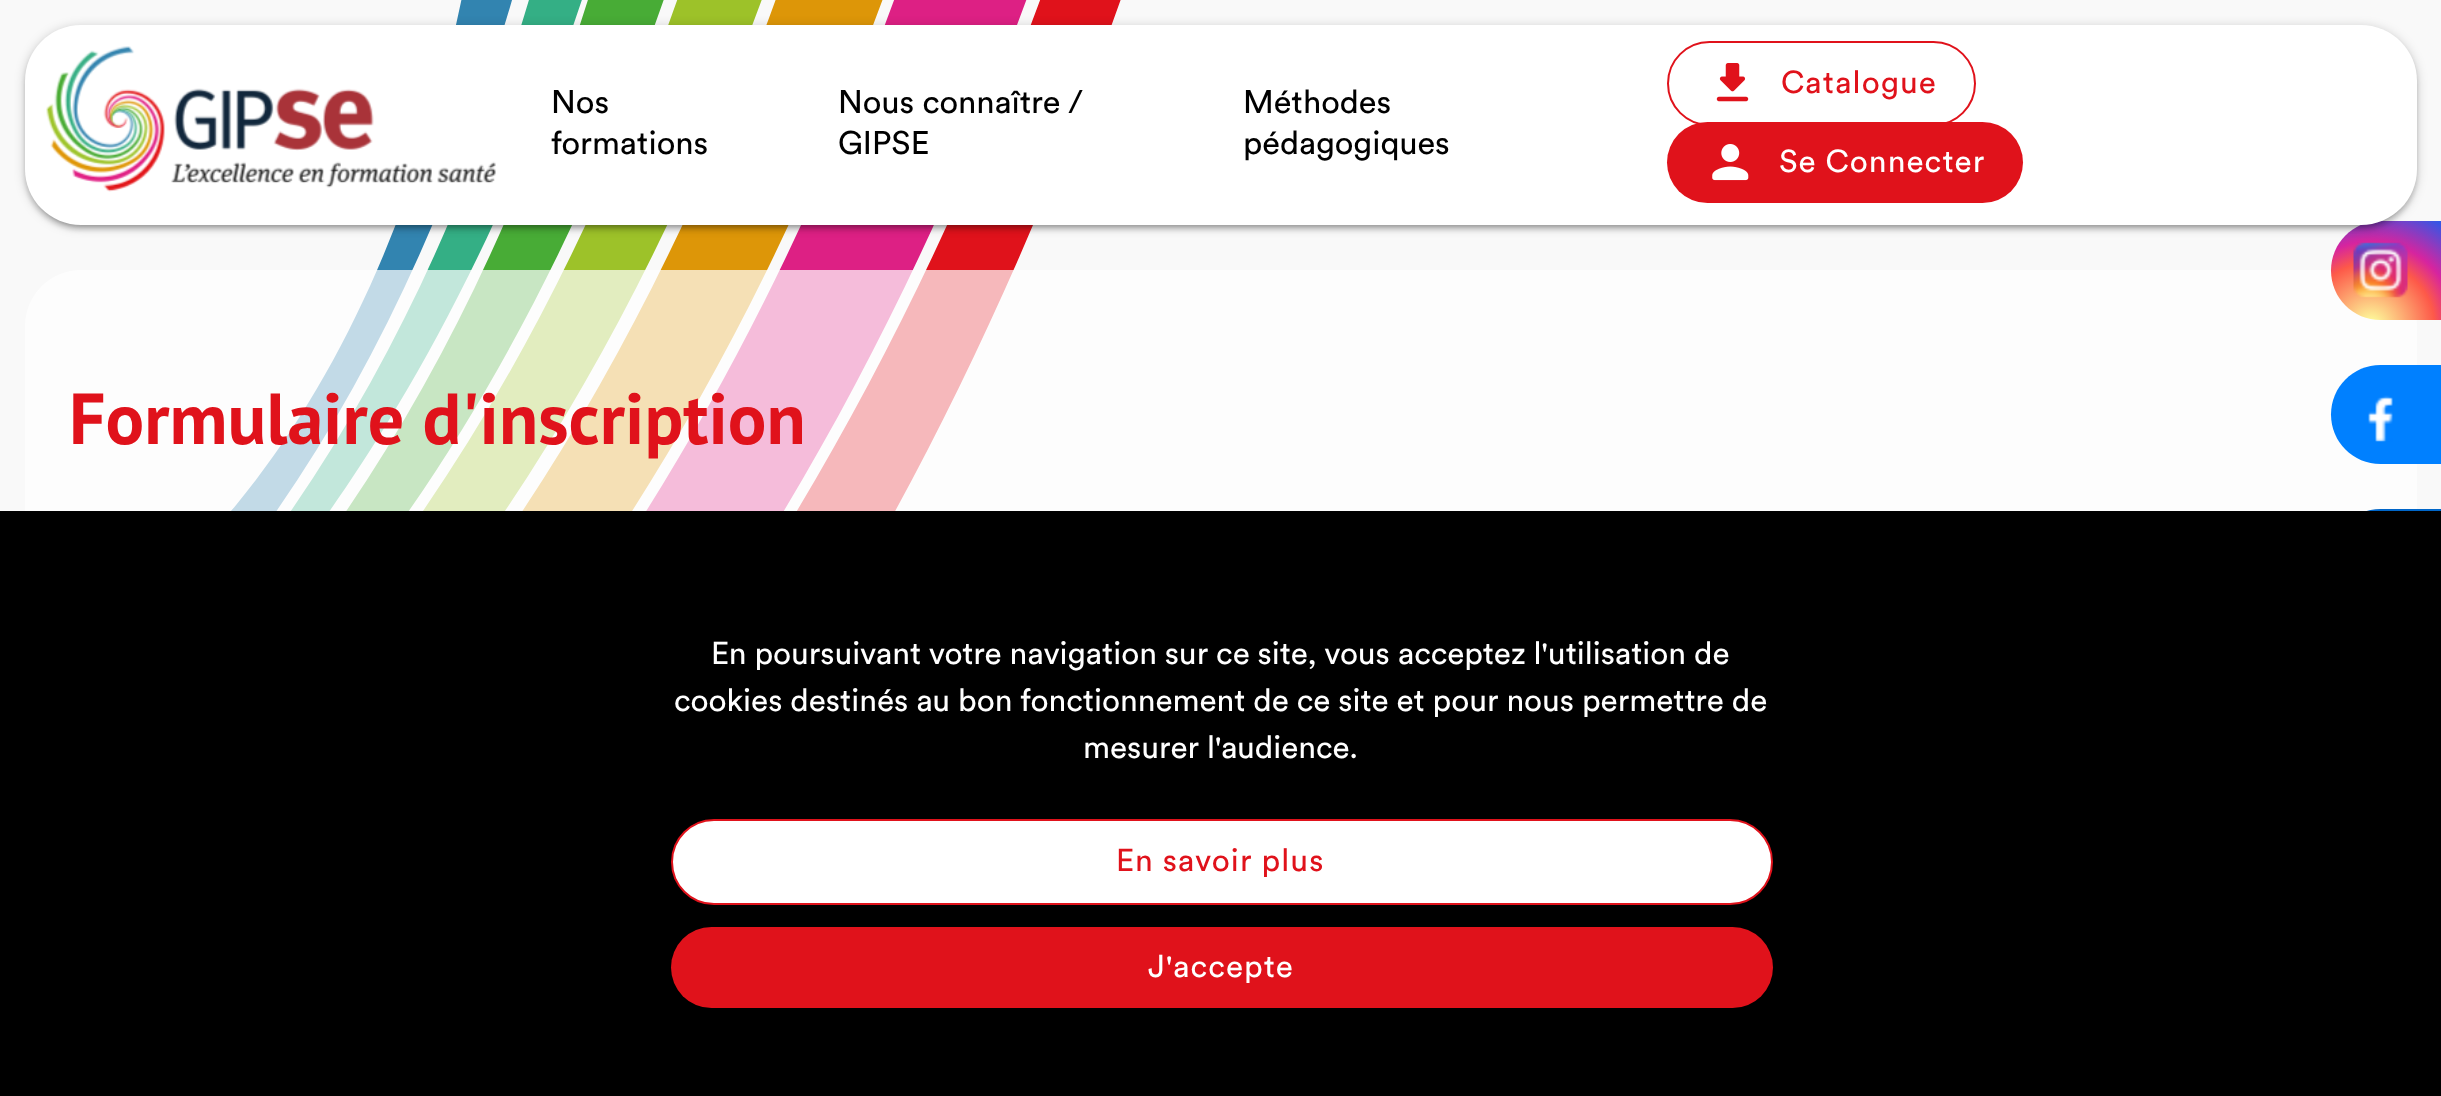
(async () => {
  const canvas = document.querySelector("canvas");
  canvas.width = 2441;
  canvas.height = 1096;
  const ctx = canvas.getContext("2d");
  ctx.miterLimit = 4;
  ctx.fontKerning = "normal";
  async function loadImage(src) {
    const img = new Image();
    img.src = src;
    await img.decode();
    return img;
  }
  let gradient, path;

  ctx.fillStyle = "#f9f9f9";
  ctx.fillRect(0, 0, 2441, 1096);
  ctx.drawImage(await loadImage("img/1.png"), 231, 0, 890, 511);
  ctx.fillStyle = "rgba(255, 255, 255, 0.7)";
  ctx.beginPath();
  ctx.roundRect(25, 270, 2392, 320, 56);
  ctx.fill();
  gradient = ctx.createRadialGradient(2371, 326, 0, 2371, 326, 141);
  gradient.addColorStop(0, "#fdf497");
  gradient.addColorStop(0.05, "#fdf497");
  gradient.addColorStop(0.45, "#fd5949");
  gradient.addColorStop(0.6, "#d6249f");
  gradient.addColorStop(0.9, "#285aeb");
  ctx.fillStyle = gradient;
  path = new Path2D("M2380.5 221H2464V320H2380.5C2353 320 2331 298 2331 270.5C2331 243 2353 221 2380.5 221Z");
  ctx.fill(path);
  ctx.drawImage(await loadImage("img/5.png"), 2353, 242, 55, 56);
  ctx.fillStyle = "rgba(0, 0, 0, 0.2)";
  ctx.filter = "blur(5.5px)";
  ctx.beginPath();
  ctx.roundRect(25, 27, 2392, 200, 56);
  ctx.fill();
  ctx.filter = "none";
  ctx.fillStyle = "rgba(0, 0, 0, 0.12)";
  ctx.filter = "blur(1px)";
  ctx.beginPath();
  ctx.roundRect(29, 36, 2383, 191, 52);
  ctx.fill();
  ctx.filter = "none";
  ctx.fillStyle = "rgba(0, 0, 0, 0.14)";
  ctx.filter = "blur(2px)";
  ctx.beginPath();
  ctx.roundRect(25, 29, 2392, 201, 56);
  ctx.fill();
  ctx.filter = "none";
  ctx.fillStyle = "#ffffff";
  ctx.beginPath();
  ctx.roundRect(25, 25, 2392, 200, 56);
  ctx.fill();
  ctx.drawImage(await loadImage("img/2.png"), 46, 46, 450, 146);
  ctx.beginPath();
  ctx.roundRect(1668, 42, 307, 83, 41.5);
  ctx.strokeStyle = "#e0121b";
  ctx.lineWidth = 2;
  ctx.stroke();
  ctx.drawImage(await loadImage("img/3.png"), 1716, 63, 33, 39);
  ctx.fillStyle = "#e0121b";
  ctx.beginPath();
  ctx.roundRect(1667, 122, 356, 81, 40.5);
  ctx.fill();
  ctx.drawImage(await loadImage("img/4.png"), 1712, 144, 37, 37);
  ctx.fillStyle = "#0080ff";
  path = new Path2D("M2380.5 365H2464V464H2380.5C2353 464 2331 442 2331 414.5C2331 387 2353 365 2380.5 365Z");
  ctx.fill(path);
  ctx.drawImage(await loadImage("img/6.png"), 2368, 395, 25, 47);
  ctx.fillStyle = "#0066c8";
  path = new Path2D("M2380.5 509H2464V608H2380.5C2353 608 2331 586 2331 558.5C2331 531 2353 509 2380.5 509Z");
  ctx.fill(path);
  ctx.fillStyle = "#000000";
  ctx.fillRect(0, 511, 2441, 585);
  ctx.fillStyle = "#ffffff";
  ctx.beginPath();
  ctx.roundRect(672, 820, 1100, 84, 42);
  ctx.fill();
  ctx.stroke();
  ctx.fillStyle = "#e0121b";
  ctx.beginPath();
  ctx.roundRect(671, 927, 1102, 81, 40.5);
  ctx.fill();
  ctx.font = "32.5px Circular";
  ctx.fillStyle = "#000000";
  for (const [text, x, y] of [
    ["Nos", 551, 113],
    ["formations", 551, 154],
    ["Nous connaître /", 838, 113],
    ["GIPSE", 838, 154],
    ["Méthodes", 1243, 113],
    ["pédagogiques", 1243, 154],
  ]) {
    ctx.fillText(text, x, y);
  }
  ctx.letterSpacing = "1.1px";
  ctx.font = "31.5px Circular";
  ctx.fillStyle = "#e0121b";
  ctx.fillText("Catalogue", 1781, 93);
  ctx.fillStyle = "#ffffff";
  ctx.fillText("Se Connecter", 1779, 172);
  ctx.letterSpacing = "0px";
  ctx.font = "bold 72px PT Sans";
  ctx.fillStyle = "#e0121b";
  ctx.fillText("Formulaire d'inscription", 69, 444);
  ctx.font = "31.5px Circular";
  ctx.fillStyle = "#ffffff";
  for (const [text, x, y] of [
    ["En poursuivant votre navigation sur ce site, vous acceptez l'utilisation de", 711, 664],
    ["cookies destinés au bon fonctionnement de ce site et pour nous permettre de", 674, 711],
    ["mesurer l'audience.", 1083, 758],
  ]) {
    ctx.fillText(text, x, y);
  }
  ctx.letterSpacing = "1.1px";
  ctx.fillStyle = "#e0121b";
  ctx.fillText("En savoir plus", 1116, 871);
  ctx.fillStyle = "#ffffff";
  ctx.fillText("J'accepte", 1148, 977);
})();
